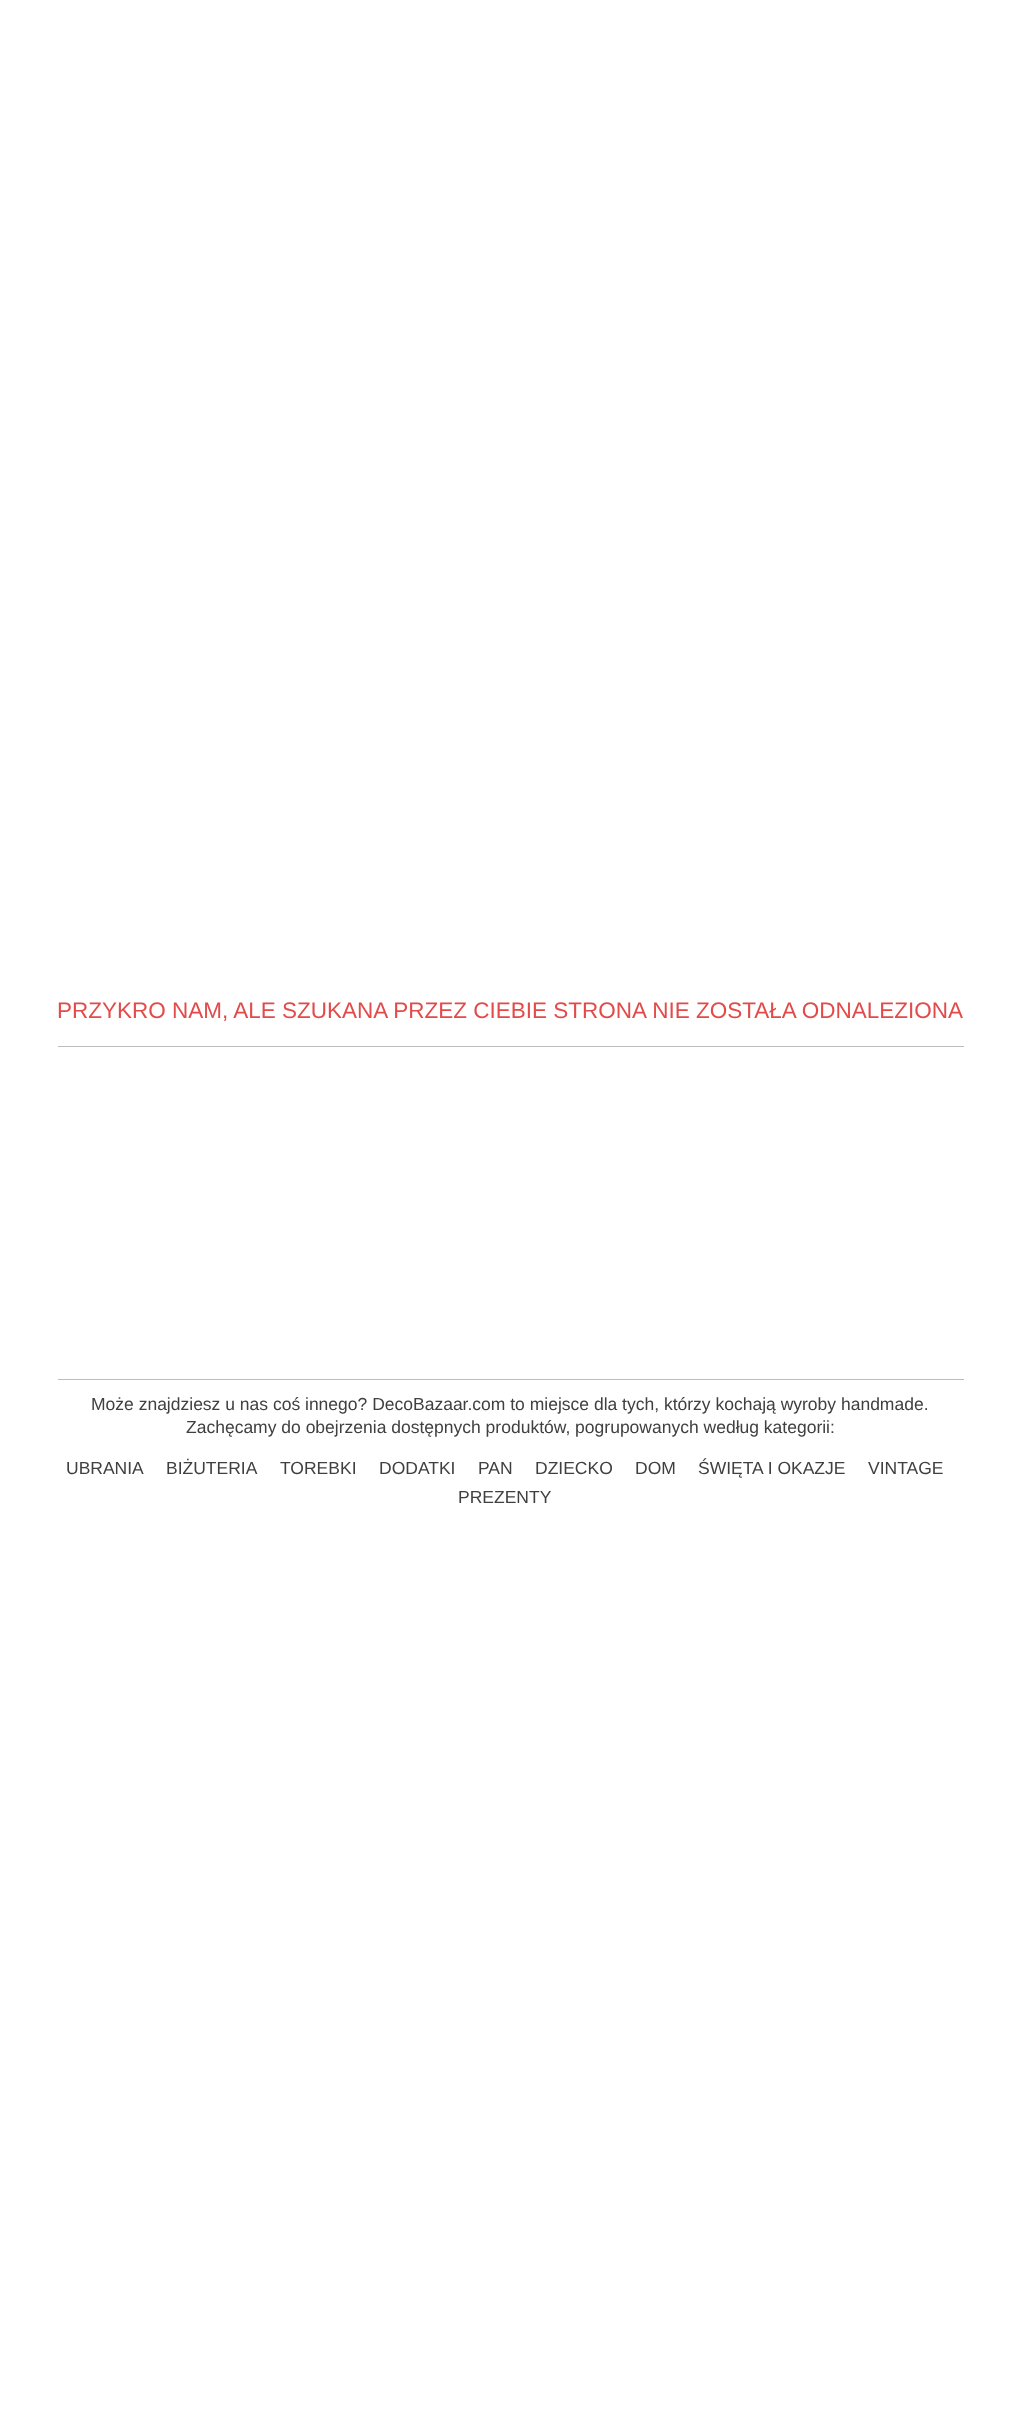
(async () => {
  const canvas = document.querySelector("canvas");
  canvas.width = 1019;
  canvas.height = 2433;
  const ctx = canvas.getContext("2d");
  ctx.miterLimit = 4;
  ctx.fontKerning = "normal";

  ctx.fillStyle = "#ffffff";
  ctx.fillRect(0, 0, 1019, 2433);
  ctx.fillStyle = "#bcbcbc";
  ctx.fillRect(58, 1046, 906, 1);
  ctx.fillRect(58, 1379, 906, 1);
  ctx.font = "22.5px Liberation Sans";
  ctx.fillStyle = "#e34b4b";
  ctx.fillText("PRZYKRO NAM, ALE SZUKANA PRZEZ CIEBIE STRONA NIE ZOSTAŁA ODNALEZIONA", 57, 1018);
  ctx.font = "17.5px Liberation Sans";
  ctx.fillStyle = "#404041";
  for (const [text, x, y] of [
    ["Może znajdziesz u nas coś innego? DecoBazaar.com to miejsce dla tych, którzy kochają wyroby handmade.", 91, 1410],
    ["Zachęcamy do obejrzenia dostępnych produktów, pogrupowanych według kategorii:", 186, 1433],
    ["UBRANIA", 66, 1474],
    ["BIŻUTERIA", 166, 1474],
    ["TOREBKI", 280, 1474],
    ["DODATKI", 379, 1474],
    ["PAN", 478, 1474],
    ["DZIECKO", 535, 1474],
    ["DOM", 635, 1474],
    ["ŚWIĘTA I OKAZJE", 698, 1474],
    ["VINTAGE", 868, 1474],
    ["PREZENTY", 458, 1503],
  ]) {
    ctx.fillText(text, x, y);
  }
})();
